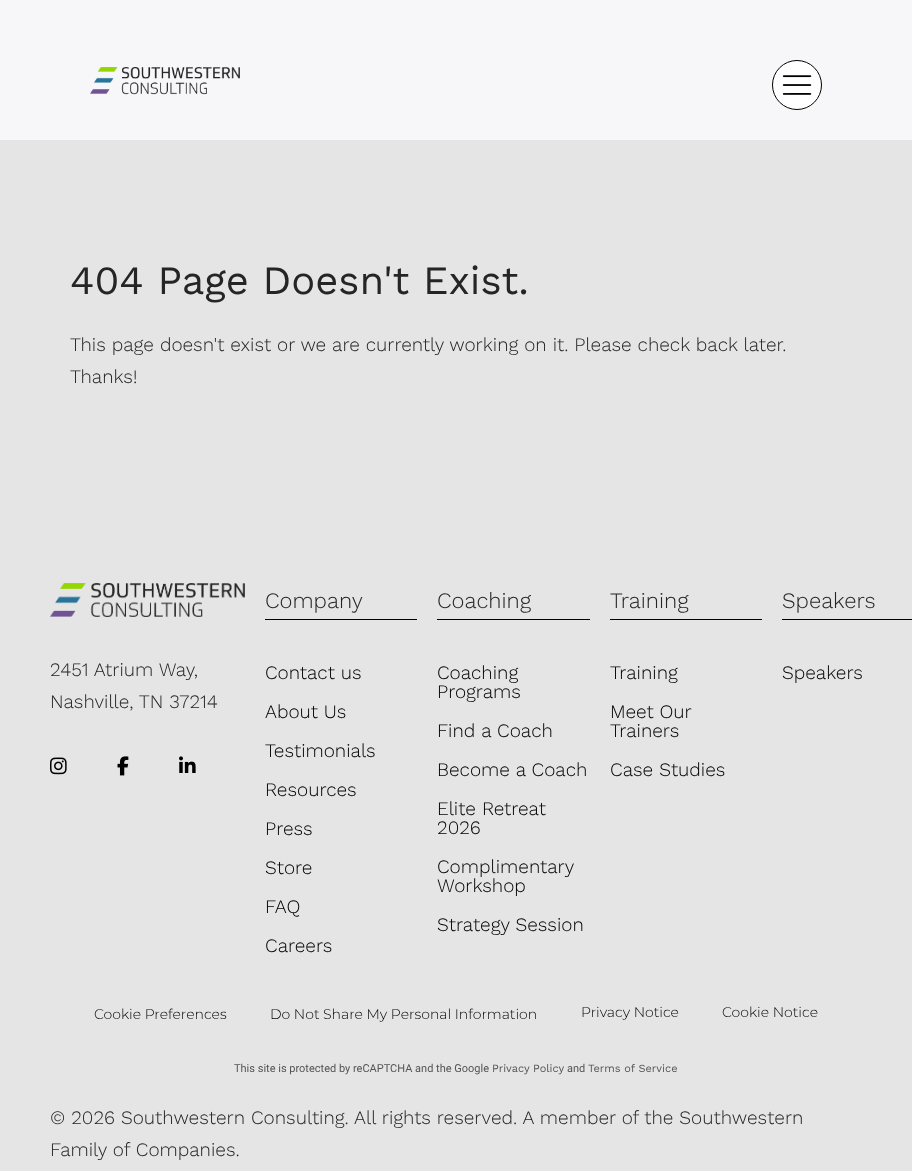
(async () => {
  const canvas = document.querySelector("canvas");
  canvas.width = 912;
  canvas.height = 1171;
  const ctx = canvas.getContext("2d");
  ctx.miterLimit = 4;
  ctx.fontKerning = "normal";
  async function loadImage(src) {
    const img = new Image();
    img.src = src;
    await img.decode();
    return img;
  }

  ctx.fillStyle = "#e5e5e5";
  ctx.fillRect(0, 0, 912, 1171);
  ctx.fillStyle = "#f7f7fa";
  ctx.fillRect(0, 0, 912, 140);
  ctx.drawImage(await loadImage("img/1.png"), 90, 67, 150, 28);
  ctx.fillStyle = "#ffffff";
  ctx.beginPath();
  ctx.arc(797, 85, 24.5, 0, Math.PI * 2);
  ctx.fill();
  ctx.strokeStyle = "#000000";
  ctx.stroke();
  ctx.drawImage(await loadImage("img/2.png"), 782, 75, 30, 20);
  ctx.drawImage(await loadImage("img/3.png"), 50, 583, 195, 34);
  ctx.drawImage(await loadImage("img/4.png"), 50, 757, 17, 18);
  ctx.drawImage(await loadImage("img/5.png"), 117, 756, 12, 20);
  ctx.drawImage(await loadImage("img/6.png"), 179, 756, 17, 17);
  for (const [x, y, w, h, color] of [
    [265, 619, 152, 1, "#000000"],
    [437, 619, 153, 1, "#000000"],
    [610, 619, 152, 1, "#000000"],
    [782, 619, 130, 1, "#000000"],
  ]) {
    ctx.fillStyle = color;
    ctx.fillRect(x, y, w, h);
  }
  ctx.font = "40px Work Sans";
  ctx.fillStyle = "#252525";
  ctx.fillText("404 Page Doesn't Exist.", 70, 294);
  ctx.font = "300 19px Work Sans";
  for (const [text, x, y] of [
    ["This page doesn't exist or we are currently working on it. Please check back later.", 70, 351],
    ["Thanks!", 70, 383],
    ["2451 Atrium Way,", 50, 676],
    ["Nashville, TN 37214", 50, 708],
  ]) {
    ctx.fillText(text, x, y);
  }
  ctx.font = "300 22px Work Sans";
  ctx.fillText("Company", 265, 608);
  ctx.font = "300 19px Work Sans";
  ctx.fillStyle = "#000000";
  for (const [text, x, y] of [
    ["Contact us", 265, 679],
    ["About Us", 265, 718],
    ["Testimonials", 265, 757],
    ["Resources", 265, 796],
    ["Press", 265, 835],
    ["Store", 265, 874],
    ["FAQ", 265, 913],
    ["Careers", 265, 952],
  ]) {
    ctx.fillText(text, x, y);
  }
  ctx.font = "300 22px Work Sans";
  ctx.fillStyle = "#252525";
  ctx.fillText("Coaching", 437, 608);
  ctx.font = "300 19px Work Sans";
  ctx.fillStyle = "#000000";
  for (const [text, x, y] of [
    ["Coaching", 437, 679],
    ["Programs", 437, 698],
    ["Find a Coach", 437, 737],
    ["Become a Coach", 437, 776],
    ["Elite Retreat", 437, 815],
    ["2026", 437, 834],
    ["Complimentary", 437, 873],
    ["Workshop", 437, 892],
    ["Strategy Session", 437, 931],
  ]) {
    ctx.fillText(text, x, y);
  }
  ctx.font = "300 22px Work Sans";
  ctx.fillStyle = "#252525";
  ctx.fillText("Training", 610, 608);
  ctx.font = "300 19px Work Sans";
  ctx.fillStyle = "#000000";
  for (const [text, x, y] of [
    ["Training", 610, 679],
    ["Meet Our", 610, 718],
    ["Trainers", 610, 737],
    ["Case Studies", 610, 776],
  ]) {
    ctx.fillText(text, x, y);
  }
  ctx.font = "300 22px Work Sans";
  ctx.fillStyle = "#252525";
  ctx.fillText("Speakers", 782, 608);
  ctx.font = "300 19px Work Sans";
  ctx.fillStyle = "#000000";
  ctx.fillText("Speakers", 782, 679);
  ctx.font = "300 14px Montserrat";
  for (const [text, x, y] of [
    ["Cookie Preferences", 94, 1019],
    ["Do Not Share My Personal Information", 270, 1019],
    ["Privacy Notice", 581, 1017],
    ["Cookie Notice", 722, 1017],
  ]) {
    ctx.fillText(text, x, y);
  }
  ctx.font = "11px Roboto";
  ctx.fillStyle = "#555555";
  ctx.fillText("This site is protected by reCAPTCHA and the Google", 234, 1072);
  ctx.font = "11px Work Sans";
  ctx.fillText("Privacy Policy", 492, 1072);
  ctx.font = "11px Roboto";
  ctx.fillText("and", 567, 1072);
  ctx.font = "11px Work Sans";
  ctx.fillText("Terms of Service", 588, 1072);
  ctx.font = "300 19px Work Sans";
  ctx.fillStyle = "#252525";
  ctx.fillText("© 2026 Southwestern Consulting. All rights reserved. A member of the Southwestern", 50, 1124);
  ctx.fillText("Family of Companies.", 50, 1156);
})();
